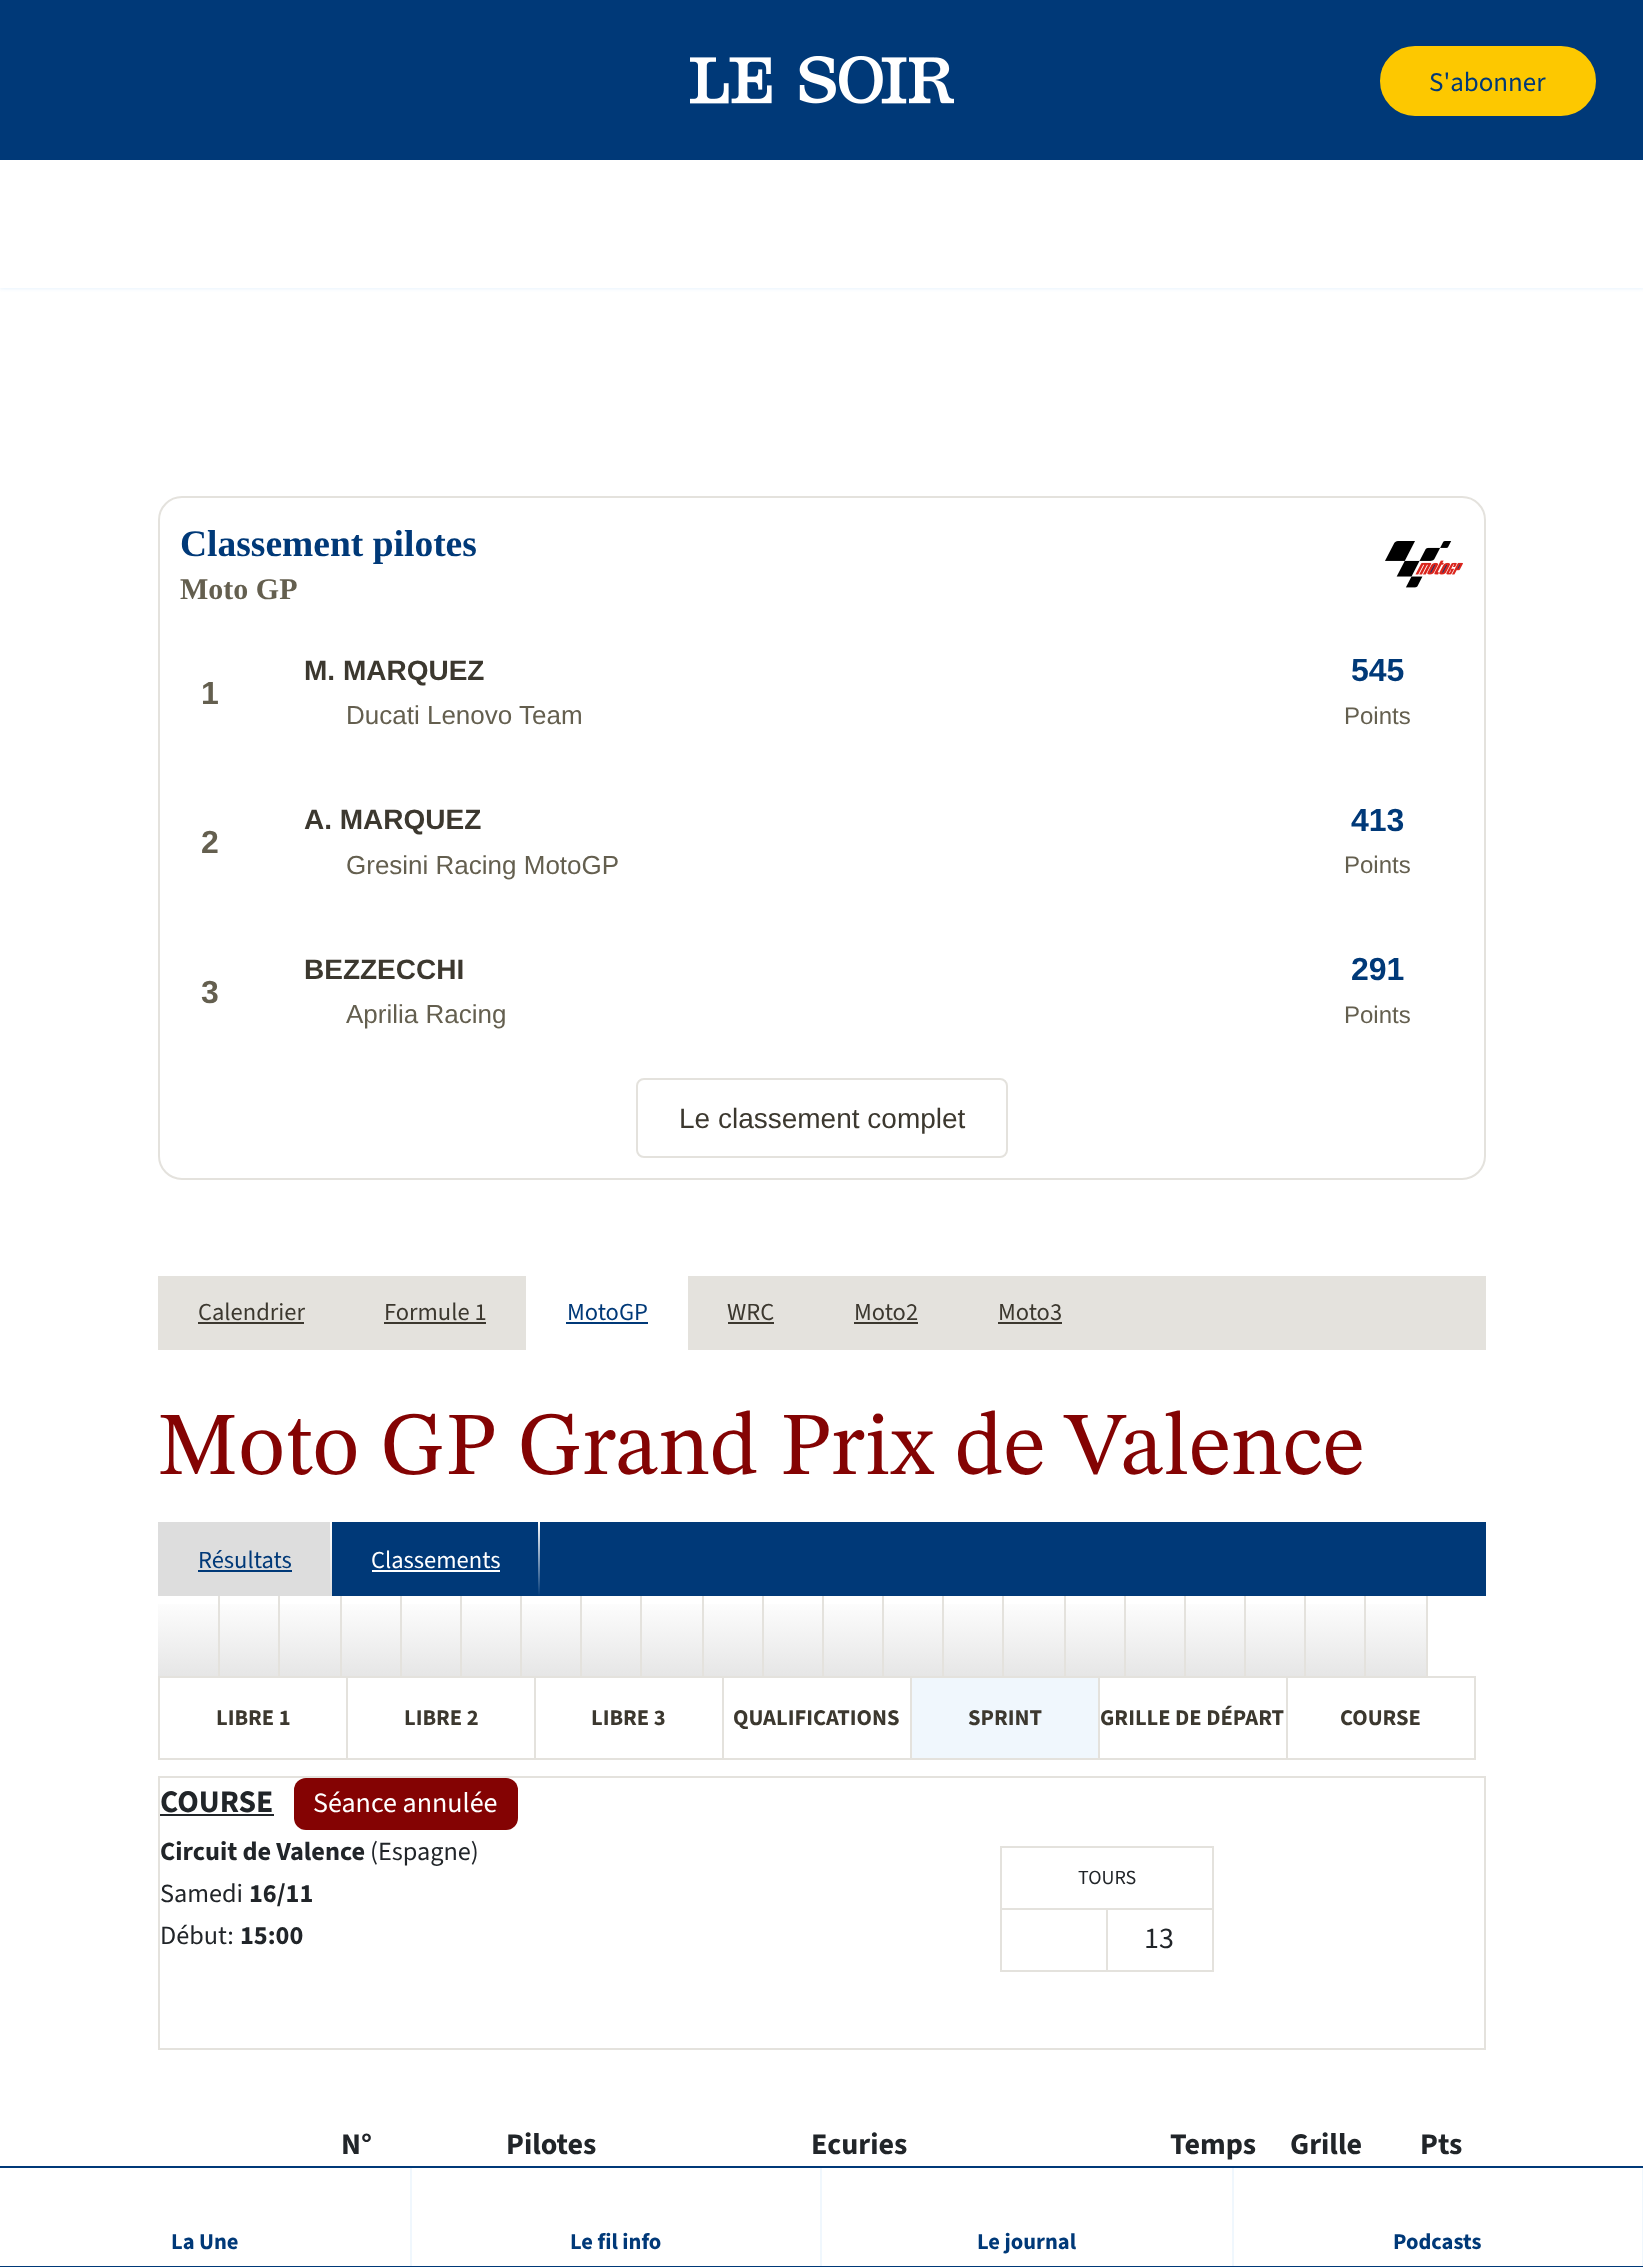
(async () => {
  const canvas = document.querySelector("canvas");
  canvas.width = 1643;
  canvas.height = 2267;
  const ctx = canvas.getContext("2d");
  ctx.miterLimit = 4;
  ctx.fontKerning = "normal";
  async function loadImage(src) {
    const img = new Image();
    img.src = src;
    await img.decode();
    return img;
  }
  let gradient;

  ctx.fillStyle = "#ffffff";
  ctx.fillRect(0, 0, 1643, 2267);
  ctx.save();
  ctx.beginPath();
  ctx.rect(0, 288, 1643, 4);
  ctx.clip();
  ctx.fillStyle = "#ddeefd";
  ctx.filter = "blur(2px)";
  ctx.beginPath();
  ctx.rect(0, 0, 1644, 288);
  ctx.fill();
  ctx.filter = "none";
  ctx.restore();
  ctx.fillStyle = "#003978";
  ctx.fillRect(0, 0, 1643, 160);
  ctx.drawImage(await loadImage("img/1.png"), 690, 56, 264, 48);
  ctx.fillStyle = "#fdc800";
  ctx.beginPath();
  ctx.roundRect(1381, 47, 214, 68, 34);
  ctx.fill();
  ctx.strokeStyle = "#fdc800";
  ctx.lineWidth = 2;
  ctx.stroke();
  for (const [x, y, w, h, color] of [
    [0, 2166, 1643, 2, "#003978"],
    [0, 2266, 1643, 1, "#003978"],
    [410, 2168, 2, 98, "#f0f7fd"],
    [820, 2168, 2, 98, "#f0f7fd"],
    [1232, 2168, 2, 98, "#f0f7fd"],
    [1642, 2168, 1, 98, "#f0f7fd"],
  ]) {
    ctx.fillStyle = color;
    ctx.fillRect(x, y, w, h);
  }
  ctx.beginPath();
  ctx.roundRect(159, 497, 1326, 682, 23);
  ctx.strokeStyle = "#e4e2dd";
  ctx.stroke();
  ctx.drawImage(await loadImage("img/2.png"), 1385, 541, 78, 47);
  ctx.beginPath();
  ctx.roundRect(637, 1079, 370, 78, 7);
  ctx.stroke();
  for (const [x, y, w, h, color] of [
    [158, 1276, 1328, 74, "#e4e2dd"],
    [198, 1322, 106, 2, "#3c382f"],
    [384, 1322, 102, 2, "#3c382f"],
    [526, 1276, 162, 74, "#ffffff"],
    [566, 1322, 82, 2, "#003978"],
    [728, 1322, 46, 2, "#3c382f"],
    [854, 1322, 64, 2, "#3c382f"],
    [998, 1322, 64, 2, "#3c382f"],
    [332, 1522, 1154, 74, "#003978"],
    [158, 1522, 172, 74, "#dddddd"],
    [198, 1570, 94, 2, "#003978"],
  ]) {
    ctx.fillStyle = color;
    ctx.fillRect(x, y, w, h);
  }
  gradient = ctx.createLinearGradient(331, 1522, 331, 1596);
  gradient.addColorStop(0, "#ffffff");
  gradient.addColorStop(0.5, "#eeeeee");
  gradient.addColorStop(1, "#dddddd");
  ctx.fillStyle = gradient;
  ctx.fillRect(330, 1522, 2, 74);
  ctx.fillStyle = "#ffffff";
  ctx.fillRect(372, 1570, 128, 2);
  gradient = ctx.createLinearGradient(539, 1522, 539, 1596);
  gradient.addColorStop(0, "#ffffff");
  gradient.addColorStop(0.5, "#809cbc");
  gradient.addColorStop(1, "#003978");
  ctx.fillStyle = gradient;
  ctx.fillRect(538, 1522, 2, 74);
  gradient = ctx.createLinearGradient(188, 1596, 188, 1676);
  gradient.addColorStop(0, "#ffffff");
  gradient.addColorStop(1, "#e6e6e6");
  ctx.fillStyle = gradient;
  ctx.fillRect(158, 1604, 60, 72);
  gradient = ctx.createLinearGradient(250, 1596, 250, 1676);
  gradient.addColorStop(0, "#ffffff");
  gradient.addColorStop(1, "#e6e6e6");
  ctx.fillStyle = gradient;
  ctx.fillRect(220, 1604, 58, 72);
  ctx.fillStyle = "#e4e2dd";
  ctx.fillRect(218, 1596, 2, 80);
  gradient = ctx.createLinearGradient(311, 1596, 311, 1676);
  gradient.addColorStop(0, "#ffffff");
  gradient.addColorStop(1, "#e6e6e6");
  ctx.fillStyle = gradient;
  ctx.fillRect(280, 1604, 60, 72);
  ctx.fillStyle = "#e4e2dd";
  ctx.fillRect(278, 1596, 2, 80);
  gradient = ctx.createLinearGradient(372, 1596, 372, 1676);
  gradient.addColorStop(0, "#ffffff");
  gradient.addColorStop(1, "#e6e6e6");
  ctx.fillStyle = gradient;
  ctx.fillRect(342, 1604, 58, 72);
  ctx.fillStyle = "#e4e2dd";
  ctx.fillRect(340, 1596, 2, 80);
  gradient = ctx.createLinearGradient(432, 1596, 432, 1676);
  gradient.addColorStop(0, "#ffffff");
  gradient.addColorStop(1, "#e6e6e6");
  ctx.fillStyle = gradient;
  ctx.fillRect(402, 1604, 58, 72);
  ctx.fillStyle = "#e4e2dd";
  ctx.fillRect(400, 1596, 2, 80);
  gradient = ctx.createLinearGradient(492, 1596, 492, 1676);
  gradient.addColorStop(0, "#ffffff");
  gradient.addColorStop(1, "#e6e6e6");
  ctx.fillStyle = gradient;
  ctx.fillRect(462, 1604, 58, 72);
  ctx.fillStyle = "#e4e2dd";
  ctx.fillRect(460, 1596, 2, 80);
  gradient = ctx.createLinearGradient(552, 1596, 552, 1676);
  gradient.addColorStop(0, "#ffffff");
  gradient.addColorStop(1, "#e6e6e6");
  ctx.fillStyle = gradient;
  ctx.fillRect(522, 1604, 58, 72);
  ctx.fillStyle = "#e4e2dd";
  ctx.fillRect(520, 1596, 2, 80);
  gradient = ctx.createLinearGradient(612, 1596, 612, 1676);
  gradient.addColorStop(0, "#ffffff");
  gradient.addColorStop(1, "#e6e6e6");
  ctx.fillStyle = gradient;
  ctx.fillRect(582, 1604, 58, 72);
  ctx.fillStyle = "#e4e2dd";
  ctx.fillRect(580, 1596, 2, 80);
  gradient = ctx.createLinearGradient(673, 1596, 673, 1676);
  gradient.addColorStop(0, "#ffffff");
  gradient.addColorStop(1, "#e6e6e6");
  ctx.fillStyle = gradient;
  ctx.fillRect(642, 1604, 60, 72);
  ctx.fillStyle = "#e4e2dd";
  ctx.fillRect(640, 1596, 2, 80);
  gradient = ctx.createLinearGradient(734, 1596, 734, 1676);
  gradient.addColorStop(0, "#ffffff");
  gradient.addColorStop(1, "#e6e6e6");
  ctx.fillStyle = gradient;
  ctx.fillRect(704, 1604, 58, 72);
  ctx.fillStyle = "#e4e2dd";
  ctx.fillRect(702, 1596, 2, 80);
  gradient = ctx.createLinearGradient(794, 1596, 794, 1676);
  gradient.addColorStop(0, "#ffffff");
  gradient.addColorStop(1, "#e6e6e6");
  ctx.fillStyle = gradient;
  ctx.fillRect(764, 1604, 58, 72);
  ctx.fillStyle = "#e4e2dd";
  ctx.fillRect(762, 1596, 2, 80);
  gradient = ctx.createLinearGradient(854, 1596, 854, 1676);
  gradient.addColorStop(0, "#ffffff");
  gradient.addColorStop(1, "#e6e6e6");
  ctx.fillStyle = gradient;
  ctx.fillRect(824, 1604, 58, 72);
  ctx.fillStyle = "#e4e2dd";
  ctx.fillRect(822, 1596, 2, 80);
  gradient = ctx.createLinearGradient(914, 1596, 914, 1676);
  gradient.addColorStop(0, "#ffffff");
  gradient.addColorStop(1, "#e6e6e6");
  ctx.fillStyle = gradient;
  ctx.fillRect(884, 1604, 58, 72);
  ctx.fillStyle = "#e4e2dd";
  ctx.fillRect(882, 1596, 2, 80);
  gradient = ctx.createLinearGradient(974, 1596, 974, 1676);
  gradient.addColorStop(0, "#ffffff");
  gradient.addColorStop(1, "#e6e6e6");
  ctx.fillStyle = gradient;
  ctx.fillRect(944, 1604, 58, 72);
  ctx.fillStyle = "#e4e2dd";
  ctx.fillRect(942, 1596, 2, 80);
  gradient = ctx.createLinearGradient(1035, 1596, 1035, 1676);
  gradient.addColorStop(0, "#ffffff");
  gradient.addColorStop(1, "#e6e6e6");
  ctx.fillStyle = gradient;
  ctx.fillRect(1004, 1604, 60, 72);
  ctx.fillStyle = "#e4e2dd";
  ctx.fillRect(1002, 1596, 2, 80);
  gradient = ctx.createLinearGradient(1096, 1596, 1096, 1676);
  gradient.addColorStop(0, "#ffffff");
  gradient.addColorStop(1, "#e6e6e6");
  ctx.fillStyle = gradient;
  ctx.fillRect(1066, 1604, 58, 72);
  ctx.fillStyle = "#e4e2dd";
  ctx.fillRect(1064, 1596, 2, 80);
  gradient = ctx.createLinearGradient(1156, 1596, 1156, 1676);
  gradient.addColorStop(0, "#ffffff");
  gradient.addColorStop(1, "#e6e6e6");
  ctx.fillStyle = gradient;
  ctx.fillRect(1126, 1604, 58, 72);
  ctx.fillStyle = "#e4e2dd";
  ctx.fillRect(1124, 1596, 2, 80);
  gradient = ctx.createLinearGradient(1216, 1596, 1216, 1676);
  gradient.addColorStop(0, "#ffffff");
  gradient.addColorStop(1, "#e6e6e6");
  ctx.fillStyle = gradient;
  ctx.fillRect(1186, 1604, 58, 72);
  ctx.fillStyle = "#e4e2dd";
  ctx.fillRect(1184, 1596, 2, 80);
  gradient = ctx.createLinearGradient(1276, 1596, 1276, 1676);
  gradient.addColorStop(0, "#ffffff");
  gradient.addColorStop(1, "#e6e6e6");
  ctx.fillStyle = gradient;
  ctx.fillRect(1246, 1604, 58, 72);
  ctx.fillStyle = "#e4e2dd";
  ctx.fillRect(1244, 1596, 2, 80);
  gradient = ctx.createLinearGradient(1336, 1596, 1336, 1676);
  gradient.addColorStop(0, "#ffffff");
  gradient.addColorStop(1, "#e6e6e6");
  ctx.fillStyle = gradient;
  ctx.fillRect(1306, 1604, 58, 72);
  ctx.fillStyle = "#e4e2dd";
  ctx.fillRect(1304, 1596, 2, 80);
  gradient = ctx.createLinearGradient(1397, 1596, 1397, 1676);
  gradient.addColorStop(0, "#ffffff");
  gradient.addColorStop(1, "#e6e6e6");
  ctx.fillStyle = gradient;
  ctx.fillRect(1366, 1604, 60, 72);
  for (const [x, y, w, h, color] of [
    [1364, 1596, 2, 80, "#e4e2dd"],
    [1426, 1596, 2, 80, "#e4e2dd"],
    [158, 1676, 1128, 2, "#e4e2dd"],
    [158, 1758, 1128, 2, "#e4e2dd"],
    [158, 1676, 2, 84, "#e4e2dd"],
    [346, 1676, 2, 84, "#e4e2dd"],
    [534, 1676, 2, 84, "#e4e2dd"],
    [722, 1676, 2, 84, "#e4e2dd"],
    [912, 1678, 186, 80, "#f0f7fd"],
    [910, 1676, 2, 84, "#e4e2dd"],
    [1098, 1676, 2, 84, "#e4e2dd"],
  ]) {
    ctx.fillStyle = color;
    ctx.fillRect(x, y, w, h);
  }
  ctx.strokeRect(1287, 1677, 188, 82);
  ctx.strokeRect(159, 1777, 1326, 272);
  ctx.fillStyle = "#212529";
  ctx.fillRect(160, 1814, 114, 2);
  ctx.fillStyle = "#840303";
  ctx.beginPath();
  ctx.roundRect(294, 1778, 224, 52, 12);
  ctx.fill();
  ctx.strokeRect(1001, 1847, 212, 124);
  ctx.fillStyle = "#e4e2dd";
  ctx.fillRect(1002, 1908, 210, 2);
  ctx.fillRect(1106, 1910, 2, 60);
  ctx.font = "27px 'Source Sans 3'";
  ctx.fillStyle = "#003978";
  ctx.fillText("S'abonner", 1429, 91);
  ctx.font = "bold 22.5px 'Source Sans 3'";
  for (const [text, x, y] of [
    ["La Une", 171, 2249],
    ["Le fil info", 570, 2249],
    ["Le journal", 977, 2249],
    ["Podcasts", 1393, 2249],
  ]) {
    ctx.fillText(text, x, y);
  }
  ctx.font = "bold 37.5px Liberation Serif";
  ctx.fillText("Classement pilotes", 180, 556);
  ctx.font = "bold 30px Liberation Serif";
  ctx.fillStyle = "#645f4f";
  ctx.fillText("Moto GP", 180, 599);
  ctx.font = "bold 28px Liberation Sans";
  ctx.fillStyle = "#3c382f";
  ctx.fillText("M. MARQUEZ", 304, 680);
  ctx.font = "bold 32px Liberation Sans";
  ctx.fillStyle = "#003978";
  ctx.fillText("545", 1351, 681);
  ctx.fillStyle = "#645f4f";
  ctx.fillText("1", 201, 704);
  ctx.font = "26px Liberation Sans";
  ctx.fillText("Ducati Lenovo Team", 346, 724);
  ctx.font = "24px Liberation Sans";
  ctx.fillText("Points", 1344, 724);
  ctx.font = "bold 28px Liberation Sans";
  ctx.fillStyle = "#3c382f";
  ctx.fillText("A. MARQUEZ", 304, 829);
  ctx.font = "bold 32px Liberation Sans";
  ctx.fillStyle = "#003978";
  ctx.fillText("413", 1351, 831);
  ctx.fillStyle = "#645f4f";
  ctx.fillText("2", 201, 853);
  ctx.font = "26px Liberation Sans";
  ctx.fillText("Gresini Racing MotoGP", 346, 874);
  ctx.font = "24px Liberation Sans";
  ctx.fillText("Points", 1344, 873);
  ctx.font = "bold 28px Liberation Sans";
  ctx.fillStyle = "#3c382f";
  ctx.fillText("BEZZECCHI", 304, 979);
  ctx.font = "bold 32px Liberation Sans";
  ctx.fillStyle = "#003978";
  ctx.fillText("291", 1351, 980);
  ctx.fillStyle = "#645f4f";
  ctx.fillText("3", 201, 1003);
  ctx.font = "26px Liberation Sans";
  ctx.fillText("Aprilia Racing", 346, 1023);
  ctx.font = "24px Liberation Sans";
  ctx.fillText("Points", 1344, 1023);
  ctx.font = "28px Liberation Sans";
  ctx.fillStyle = "#3c382f";
  ctx.fillText("Le classement complet", 679, 1128);
  ctx.font = "24.5px 'Source Sans 3'";
  ctx.fillText("Calendrier", 198, 1320);
  ctx.fillText("Formule 1", 384, 1320);
  ctx.fillStyle = "#003978";
  ctx.fillText("MotoGP", 567, 1320);
  ctx.fillStyle = "#3c382f";
  for (const [text, x, y] of [
    ["WRC", 727, 1320],
    ["Moto2", 854, 1320],
    ["Moto3", 998, 1320],
  ]) {
    ctx.fillText(text, x, y);
  }
  ctx.font = "90px STIX Two Text";
  ctx.fillStyle = "#840303";
  ctx.fillText("Moto GP Grand Prix de Valence", 158, 1474);
  ctx.font = "24.5px 'Source Sans 3'";
  ctx.fillStyle = "#003978";
  ctx.fillText("Résultats", 198, 1568);
  ctx.fillStyle = "#ffffff";
  ctx.fillText("Classements", 371, 1568);
  ctx.font = "bold 22.5px 'Source Sans 3'";
  ctx.fillStyle = "#3c382f";
  for (const [text, x, y] of [
    ["LIBRE 1", 216, 1725],
    ["LIBRE 2", 404, 1725],
    ["LIBRE 3", 591, 1725],
    ["QUALIFICATIONS", 733, 1725],
    ["SPRINT", 968, 1725],
    ["GRILLE DE DÉPART", 1100, 1725],
    ["COURSE", 1340, 1725],
  ]) {
    ctx.fillText(text, x, y);
  }
  ctx.font = "bold 31.5px 'Source Sans 3'";
  ctx.fillStyle = "#212529";
  ctx.fillText("COURSE", 160, 1812);
  ctx.font = "28px 'Source Sans 3'";
  ctx.fillStyle = "#ffffff";
  ctx.fillText("Séance annulée", 313, 1812);
  ctx.font = "bold 26.25px 'Source Sans 3'";
  ctx.fillStyle = "#212529";
  ctx.fillText("Circuit de Valence", 160, 1860);
  ctx.font = "26.25px 'Source Sans 3'";
  ctx.fillText("(Espagne)", 370, 1860);
  ctx.fillText("Samedi", 160, 1902);
  ctx.font = "bold 26.25px 'Source Sans 3'";
  ctx.fillText("16/11", 249, 1902);
  ctx.font = "26.25px 'Source Sans 3'";
  ctx.fillText("Début:", 160, 1944);
  ctx.font = "bold 26.25px 'Source Sans 3'";
  ctx.fillText("15:00", 240, 1944);
  ctx.font = "20px 'Source Sans 3'";
  ctx.fillText("TOURS", 1078, 1884);
  ctx.font = "30px 'Source Sans 3'";
  ctx.fillText("13", 1144, 1948);
  ctx.font = "bold 30px 'Source Sans 3'";
  for (const [text, x, y] of [
    ["N°", 341, 2154],
    ["Pilotes", 506, 2154],
    ["Ecuries", 811, 2154],
    ["Temps", 1170, 2154],
    ["Grille", 1290, 2154],
    ["Pts", 1420, 2154],
  ]) {
    ctx.fillText(text, x, y);
  }
})();
